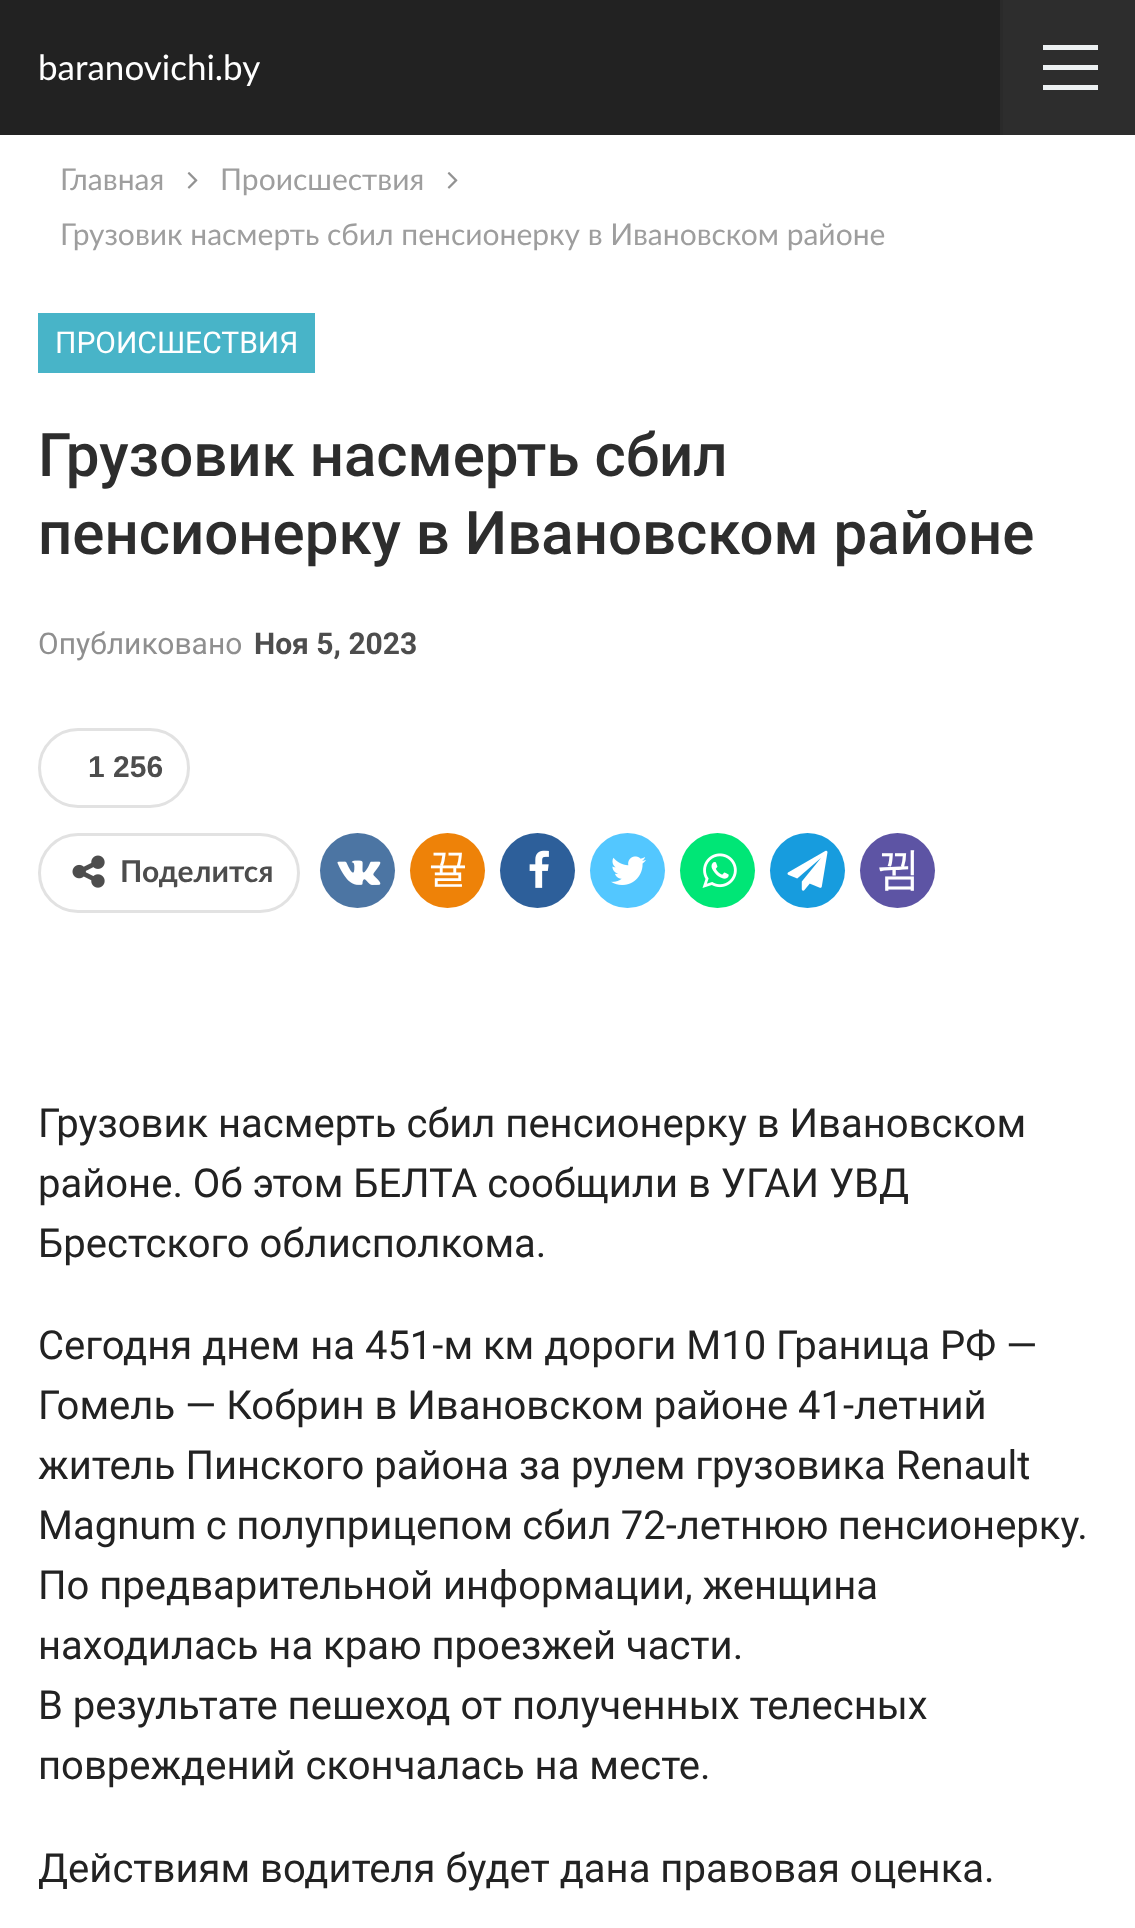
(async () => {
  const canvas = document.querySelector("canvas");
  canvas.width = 1135;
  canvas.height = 1928;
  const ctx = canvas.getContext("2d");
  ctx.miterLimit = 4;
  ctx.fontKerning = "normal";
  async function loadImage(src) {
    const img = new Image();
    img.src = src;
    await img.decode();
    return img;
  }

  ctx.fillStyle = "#ffffff";
  ctx.fillRect(0, 0, 1135, 1928);
  for (const [x, y, w, h, color] of [
    [0, 0, 1000, 135, "#222222"],
    [1003, 0, 132, 135, "#2d2d2d"],
    [1000, 0, 3, 135, "#2a2a2a"],
    [1043, 65, 55, 5, "#ecf0f1"],
    [1043, 45, 55, 5, "#ecf0f1"],
    [1043, 85, 55, 5, "#ecf0f1"],
  ]) {
    ctx.fillStyle = color;
    ctx.fillRect(x, y, w, h);
  }
  ctx.drawImage(await loadImage("img/1.png"), 187, 172, 11, 17);
  ctx.drawImage(await loadImage("img/1.png"), 447, 172, 11, 17);
  ctx.fillStyle = "#48b4c8";
  ctx.fillRect(38, 313, 277, 60);
  ctx.beginPath();
  ctx.roundRect(39.5, 729.5, 149, 77, 38.5);
  ctx.strokeStyle = "#e2e2e2";
  ctx.lineWidth = 3;
  ctx.stroke();
  ctx.beginPath();
  ctx.roundRect(39.5, 834.5, 259, 77, 38.5);
  ctx.stroke();
  ctx.drawImage(await loadImage("img/2.png"), 72, 855, 33, 33);
  ctx.fillStyle = "#4c75a3";
  ctx.beginPath();
  ctx.arc(357.5, 870.5, 37.5, 0, Math.PI * 2);
  ctx.fill();
  ctx.drawImage(await loadImage("img/3.png"), 337, 860, 44, 25);
  ctx.fillStyle = "#ee8208";
  ctx.beginPath();
  ctx.arc(447.5, 870.5, 37.5, 0, Math.PI * 2);
  ctx.fill();
  ctx.fillStyle = "#2d5f9a";
  ctx.beginPath();
  ctx.arc(537.5, 870.5, 37.5, 0, Math.PI * 2);
  ctx.fill();
  ctx.drawImage(await loadImage("img/4.png"), 529, 850, 20, 38);
  ctx.fillStyle = "#53c7ff";
  ctx.beginPath();
  ctx.arc(627.5, 870.5, 37.5, 0, Math.PI * 2);
  ctx.fill();
  ctx.drawImage(await loadImage("img/5.png"), 611, 856, 35, 29);
  ctx.fillStyle = "#00e676";
  ctx.beginPath();
  ctx.arc(717.5, 870.5, 37.5, 0, Math.PI * 2);
  ctx.fill();
  ctx.drawImage(await loadImage("img/6.png"), 702, 853, 35, 35);
  ctx.fillStyle = "#179cde";
  ctx.beginPath();
  ctx.arc(807.5, 870.5, 37.5, 0, Math.PI * 2);
  ctx.fill();
  ctx.drawImage(await loadImage("img/7.png"), 787, 850, 41, 41);
  ctx.fillStyle = "#5d54a4";
  ctx.beginPath();
  ctx.arc(897.5, 870.5, 37.5, 0, Math.PI * 2);
  ctx.fill();
  ctx.font = "35px Lato";
  ctx.fillStyle = "#ffffff";
  ctx.fillText("baranovichi.by", 38, 80);
  ctx.font = "30px Lato";
  ctx.fillStyle = "#9e9e9e";
  for (const [text, x, y] of [
    ["Главная", 60, 190],
    ["Происшествия", 220, 190],
    ["Грузовик насмерть сбил пенсионерку в Ивановском районе", 60, 245],
  ]) {
    ctx.fillText(text, x, y);
  }
  ctx.font = "30px Roboto";
  ctx.fillStyle = "#ffffff";
  ctx.fillText("ПРОИСШЕСТВИЯ", 55, 353);
  ctx.font = "500 60px Roboto";
  ctx.fillStyle = "#2d2d2d";
  ctx.fillText("Грузовик насмерть сбил", 38, 476);
  ctx.fillText("пенсионерку в Ивановском районе", 38, 554);
  ctx.font = "30px Roboto";
  ctx.fillStyle = "#8f8f8f";
  ctx.fillText("Опубликовано", 38, 654);
  ctx.font = "bold 30px Roboto";
  ctx.fillStyle = "#4d4d4d";
  ctx.fillText("Ноя 5, 2023", 254, 654);
  ctx.font = "bold 30px Liberation Sans";
  ctx.fillText("1 256", 88, 777);
  ctx.font = "bold 30px Lato";
  ctx.fillText("Поделится", 120, 882);
  ctx.font = "500 40px WenQuanYi Zen Hei";
  ctx.fillStyle = "#ffffff";
  ctx.fillText("뀰", 428, 882);
  ctx.font = "500 45px WenQuanYi Zen Hei";
  ctx.fillText("뀜", 876, 884);
  ctx.font = "40px Roboto";
  ctx.fillStyle = "#222222";
  for (const [text, x, y] of [
    ["Грузовик насмерть сбил пенсионерку в Ивановском", 38, 1137],
    ["районе. Об этом БЕЛТА сообщили в УГАИ УВД", 38, 1197],
    ["Брестского облисполкома.", 38, 1257],
    ["Сегодня днем на 451-м км дороги М10 Граница РФ —", 38, 1359],
    ["Гомель — Кобрин в Ивановском районе 41-летний", 38, 1419],
    ["житель Пинского района за рулем грузовика Renault", 38, 1479],
  ]) {
    ctx.fillText(text, x, y);
  }
  ctx.wordSpacing = "-0.5px";
  ctx.fillText("Magnum с полуприцепом сбил 72-летнюю пенсионерку.", 38, 1539);
  ctx.wordSpacing = "0px";
  for (const [text, x, y] of [
    ["По предварительной информации, женщина", 38, 1599],
    ["находилась на краю проезжей части.", 38, 1659],
    ["В результате пешеход от полученных телесных", 38, 1719],
    ["повреждений скончалась на месте.", 38, 1779],
    ["Действиям водителя будет дана правовая оценка.", 38, 1882],
  ]) {
    ctx.fillText(text, x, y);
  }
})();
